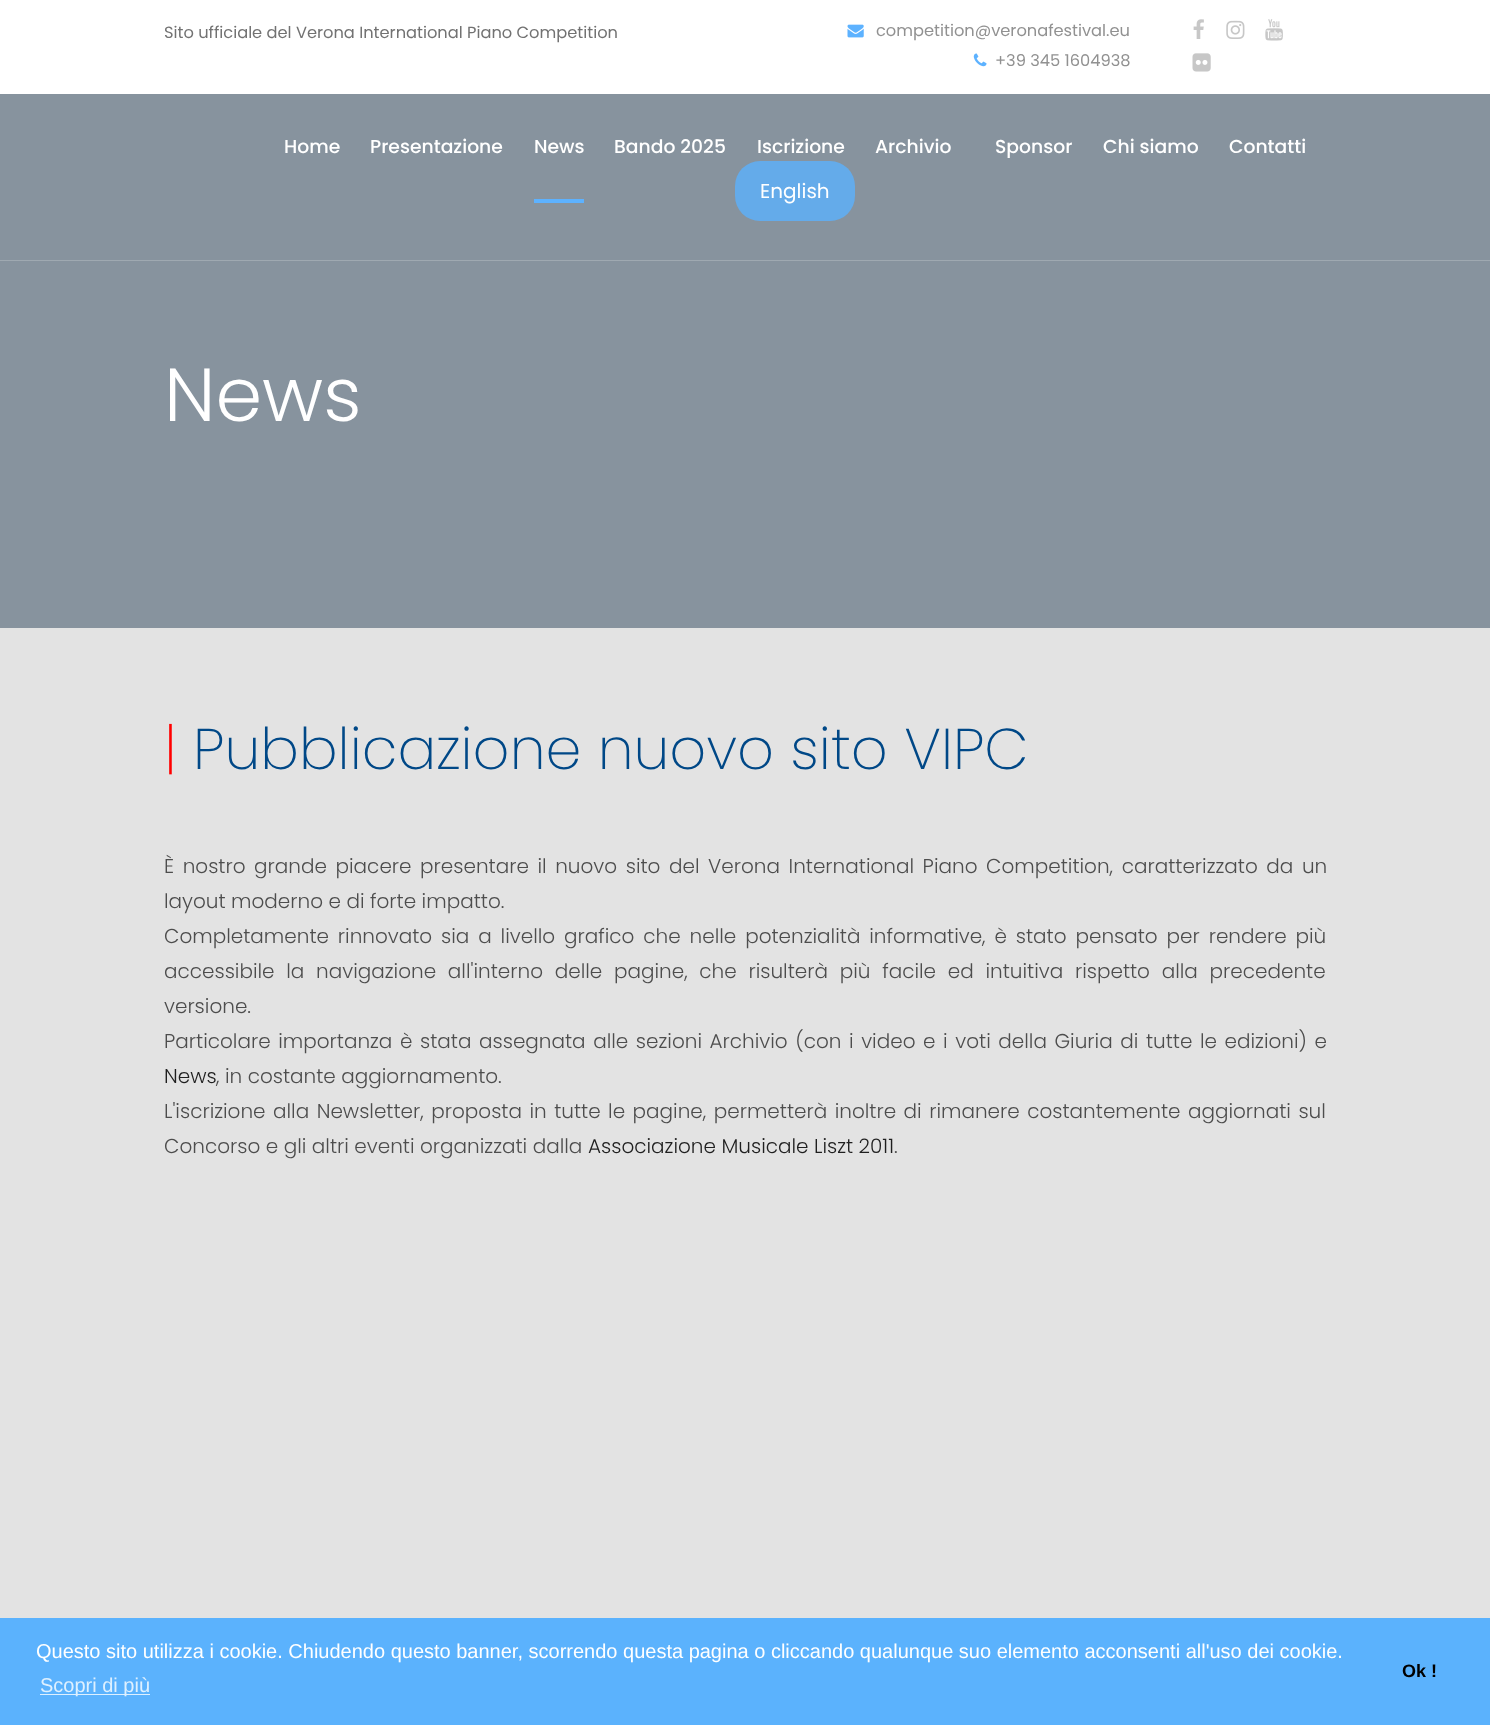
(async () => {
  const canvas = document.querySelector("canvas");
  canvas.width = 1490;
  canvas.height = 1725;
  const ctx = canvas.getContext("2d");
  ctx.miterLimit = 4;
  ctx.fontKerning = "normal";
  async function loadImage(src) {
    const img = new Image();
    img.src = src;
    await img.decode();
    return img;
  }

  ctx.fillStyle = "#e3e3e3";
  ctx.fillRect(0, 0, 1490, 1725);
  for (const [x, y, w, h, color] of [
    [0, 94, 1490, 534, "#87939e"],
    [0, 260, 1490, 1, "#9fa9b1"],
    [0, 0, 1490, 94, "#ffffff"],
  ]) {
    ctx.fillStyle = color;
    ctx.fillRect(x, y, w, h);
  }
  ctx.drawImage(await loadImage("img/1.png"), 847, 24, 17, 14);
  ctx.drawImage(await loadImage("img/2.png"), 973, 53, 14, 14);
  ctx.drawImage(await loadImage("img/3.png"), 1193, 19, 11, 20);
  ctx.drawImage(await loadImage("img/4.png"), 1226, 20, 19, 19);
  ctx.drawImage(await loadImage("img/5.png"), 1265, 19, 18, 22);
  ctx.drawImage(await loadImage("img/6.png"), 1192, 53, 19, 19);
  ctx.fillStyle = "#5db2ff";
  ctx.fillRect(534, 199, 50, 4);
  ctx.fillStyle = "#64abea";
  ctx.beginPath();
  ctx.roundRect(735, 161, 120, 60, 25);
  ctx.fill();
  ctx.fillStyle = "#5bb2fd";
  ctx.fillRect(0, 1618, 1490, 107);
  ctx.fillStyle = "#def0ff";
  ctx.fillRect(40, 1694, 110, 1);
  ctx.font = "16.25px Poppins";
  ctx.fillStyle = "#727272";
  ctx.fillText("Sito ufficiale del Verona International Piano Competition", 164, 38);
  ctx.fillStyle = "#919191";
  ctx.fillText("competition@veronafestival.eu", 876, 36);
  ctx.fillText("+39 345 1604938", 995, 66);
  ctx.font = "500 18.75px Poppins";
  ctx.fillStyle = "#ffffff";
  for (const [text, x, y] of [
    ["Home", 284, 153],
    ["Presentazione", 370, 153],
    ["News", 534, 153],
    ["Bando 2025", 614, 153],
    ["Iscrizione", 757, 153],
    ["Archivio", 875, 153],
    ["Sponsor", 995, 153],
    ["Chi siamo", 1103, 153],
    ["Contatti", 1229, 153],
  ]) {
    ctx.fillText(text, x, y);
  }
  ctx.font = "20px Poppins";
  ctx.fillText("English", 760, 198);
  ctx.font = "300 75px Poppins";
  ctx.fillText("News", 164, 421);
  ctx.font = "200 57.5px Poppins";
  ctx.fillStyle = "#ff0000";
  ctx.fillText("|", 164, 769);
  ctx.fillStyle = "#004887";
  ctx.fillText("Pubblicazione nuovo sito VIPC", 193, 769);
  ctx.wordSpacing = "3.1px";
  ctx.font = "300 20px Poppins";
  ctx.fillStyle = "#4d4d4d";
  ctx.fillText("È nostro grande piacere presentare il nuovo sito del Verona International Piano Competition, caratterizzato da un", 164, 873);
  ctx.wordSpacing = "0px";
  ctx.fillText("layout moderno e di forte impatto.", 164, 908);
  ctx.wordSpacing = "3.4px";
  ctx.fillText("Completamente rinnovato sia a livello grafico che nelle potenzialità informative, è stato pensato per rendere più", 164, 943);
  ctx.wordSpacing = "6.25px";
  ctx.fillText("accessibile la navigazione all'interno delle pagine, che risulterà più facile ed intuitiva rispetto alla precedente", 164, 978);
  ctx.wordSpacing = "0px";
  ctx.fillText("versione.", 164, 1013);
  ctx.wordSpacing = "2.1px";
  ctx.fillText("Particolare importanza è stata assegnata alle sezioni Archivio (con i video e i voti della Giuria di tutte le edizioni) e", 164, 1048);
  ctx.wordSpacing = "0px";
  ctx.fillStyle = "#1f1f1f";
  ctx.fillText("News", 164, 1083);
  ctx.fillStyle = "#4d4d4d";
  ctx.fillText(", in costante aggiornamento.", 216, 1083);
  ctx.wordSpacing = "2px";
  ctx.fillText("L'iscrizione alla Newsletter, proposta in tutte le pagine, permetterà inoltre di rimanere costantemente aggiornati sul", 164, 1118);
  ctx.wordSpacing = "0px";
  ctx.fillText("Concorso e gli altri eventi organizzati dalla", 164, 1153);
  ctx.fillStyle = "#1f1f1f";
  ctx.fillText("Associazione Musicale Liszt 2011", 588, 1153);
  ctx.fillStyle = "#4d4d4d";
  ctx.fillText(".", 894, 1153);
  ctx.font = "20px Liberation Sans";
  ctx.fillStyle = "#ffffff";
  ctx.fillText("Questo sito utilizza i cookie. Chiudendo questo banner, scorrendo questa pagina o cliccando qualunque suo elemento acconsenti all'uso dei cookie.", 36, 1658);
  ctx.fillStyle = "#def0ff";
  ctx.fillText("Scopri di più", 40, 1692);
  ctx.font = "bold 18px Liberation Sans";
  ctx.fillStyle = "#000000";
  ctx.fillText("Ok !", 1402, 1677);
})();
